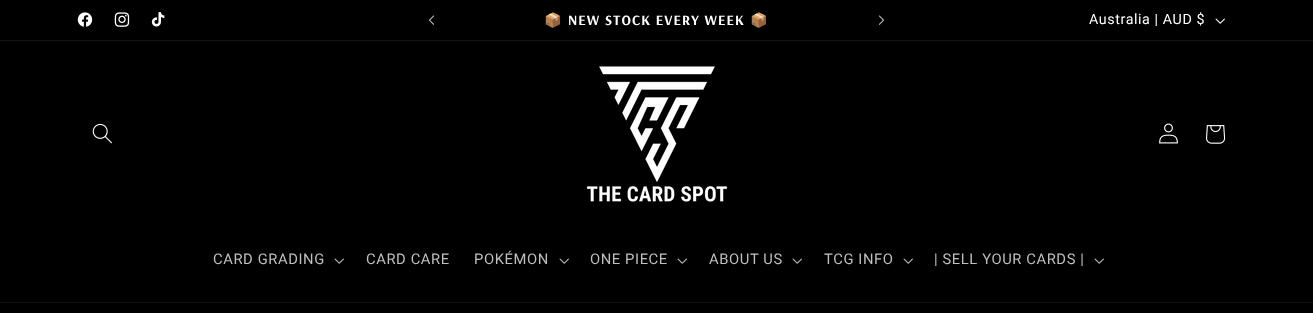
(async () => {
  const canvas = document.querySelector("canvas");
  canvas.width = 1313;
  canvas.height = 313;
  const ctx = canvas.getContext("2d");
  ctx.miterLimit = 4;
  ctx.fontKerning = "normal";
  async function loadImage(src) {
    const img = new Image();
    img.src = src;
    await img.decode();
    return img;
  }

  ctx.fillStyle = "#000000";
  ctx.fillRect(0, 0, 1313, 313);
  ctx.fillStyle = "#141414";
  ctx.fillRect(0, 40, 1313, 1);
  ctx.drawImage(await loadImage("img/1.png"), 77, 12, 16, 15);
  ctx.drawImage(await loadImage("img/2.png"), 114, 12, 16, 15);
  ctx.drawImage(await loadImage("img/3.png"), 151, 12, 14, 15);
  ctx.drawImage(await loadImage("img/4.png"), 429, 15, 6, 10);
  ctx.drawImage(await loadImage("img/5.png"), 878, 15, 6, 10);
  ctx.drawImage(await loadImage("img/6.png"), 1215, 18, 10, 6);
  ctx.fillRect(0, 302, 1313, 1);
  ctx.drawImage(await loadImage("img/7.png"), 92, 123, 20, 21);
  ctx.drawImage(await loadImage("img/8.png"), 586, 66, 142, 136);
  ctx.drawImage(await loadImage("img/9.png"), 1159, 123, 19, 21);
  ctx.drawImage(await loadImage("img/10.png"), 1206, 125, 20, 19);
  ctx.drawImage(await loadImage("img/11.png"), 334, 258, 10, 6);
  ctx.drawImage(await loadImage("img/11.png"), 559, 258, 10, 6);
  ctx.drawImage(await loadImage("img/11.png"), 677, 258, 10, 6);
  ctx.drawImage(await loadImage("img/11.png"), 792, 258, 10, 6);
  ctx.drawImage(await loadImage("img/11.png"), 903, 258, 10, 6);
  ctx.drawImage(await loadImage("img/11.png"), 1094, 258, 10, 6);
  ctx.letterSpacing = "1.05px";
  ctx.font = "bold 14.25px Noto Color Emoji";
  ctx.fillStyle = "#ffffff";
  ctx.fillText("📦", 544, 25);
  ctx.font = "bold 14.25px Arsenal";
  ctx.fillText("NEW STOCK EVERY WEEK", 568, 25);
  ctx.font = "bold 14.25px Noto Color Emoji";
  ctx.fillText("📦", 750, 25);
  ctx.letterSpacing = "0.6px";
  ctx.font = "14.25px Roboto";
  ctx.fillText("Australia | AUD $", 1089, 24);
  ctx.font = "14.75px Roboto";
  ctx.fillStyle = "#bfbfbf";
  for (const [text, x, y] of [
    ["CARD GRADING", 213, 264],
    ["CARD CARE", 366, 264],
    ["POKÉMON", 474, 264],
    ["ONE PIECE", 590, 264],
    ["ABOUT US", 709, 264],
    ["TCG INFO", 824, 264],
    ["| SELL YOUR CARDS |", 934, 264],
  ]) {
    ctx.fillText(text, x, y);
  }
})();
